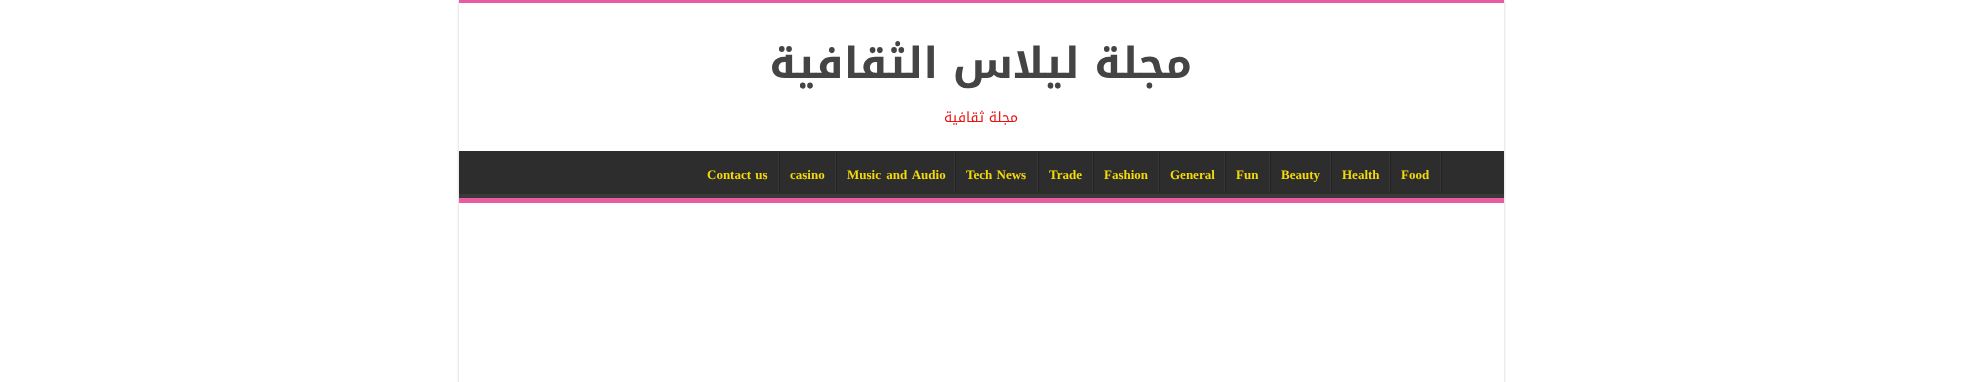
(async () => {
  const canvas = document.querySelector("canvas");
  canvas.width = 1962;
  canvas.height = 382;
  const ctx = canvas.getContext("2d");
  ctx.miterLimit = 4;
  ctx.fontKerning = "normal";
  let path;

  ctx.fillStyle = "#ffffff";
  ctx.fillRect(0, 0, 1962, 382);
  ctx.save();
  path = new Path2D("M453 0H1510V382H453ZM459 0H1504V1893H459Z");
  ctx.clip(path, "evenodd");
  ctx.fillStyle = "#cacaca";
  ctx.filter = "blur(1.5px)";
  ctx.beginPath();
  ctx.rect(459, 0, 1045, 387);
  ctx.fill();
  ctx.filter = "none";
  ctx.restore();
  ctx.fillStyle = "#e95ca2";
  ctx.fillRect(459, 0, 1045, 3);
  ctx.fillStyle = "#2d2d2d";
  ctx.fillRect(459, 151, 1045, 43);
  ctx.save();
  ctx.beginPath();
  ctx.rect(459, 151, 1045, 47);
  ctx.clip();
  ctx.fillStyle = "#393939";
  path = new Path2D("M360 52H1603V297H360ZM458 145H1504V185C1504 186 1505 194 1503 194H458L457 193V145Z");
  ctx.fill(path, "evenodd");
  ctx.restore();
  for (const [x, y, w, h, color] of [
    [459, 198, 1045, 5, "#e95ca2"],
    [779, 151, 1, 42, "#222222"],
    [778, 151, 1, 42, "#383838"],
    [836, 151, 1, 42, "#222222"],
    [835, 151, 1, 42, "#383838"],
    [955, 151, 1, 42, "#222222"],
    [954, 151, 1, 42, "#383838"],
    [1038, 151, 1, 42, "#222222"],
    [1037, 151, 1, 42, "#383838"],
    [1093, 151, 1, 42, "#222222"],
    [1092, 151, 1, 42, "#383838"],
    [1159, 151, 1, 42, "#222222"],
    [1158, 151, 1, 42, "#383838"],
    [1225, 151, 1, 42, "#222222"],
    [1224, 151, 1, 42, "#383838"],
    [1270, 151, 1, 42, "#222222"],
    [1269, 151, 1, 42, "#383838"],
    [1331, 151, 1, 42, "#222222"],
    [1330, 151, 1, 42, "#383838"],
    [1390, 151, 1, 42, "#222222"],
    [1389, 151, 1, 42, "#383838"],
    [1441, 151, 1, 42, "#222222"],
    [1440, 151, 1, 42, "#383838"],
  ]) {
    ctx.fillStyle = color;
    ctx.fillRect(x, y, w, h);
  }
  ctx.direction = "rtl";
  ctx.font = "bold 42.75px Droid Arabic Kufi";
  ctx.fillStyle = "#444444";
  ctx.fillText("مجلة ليلاس الثقافية", 1192, 78);
  ctx.font = "14px Droid Arabic Kufi";
  ctx.fillStyle = "#e81212";
  ctx.fillText("مجلة ثقافية", 1018, 122);
  ctx.wordSpacing = "1px";
  ctx.direction = "ltr";
  ctx.font = "bold 13px Liberation Serif";
  ctx.fillStyle = "#f5da0a";
  ctx.fillText("Contact us", 707, 179);
  ctx.wordSpacing = "0px";
  ctx.fillText("casino", 790, 179);
  ctx.wordSpacing = "2px";
  ctx.fillText("Music and Audio", 847, 179);
  ctx.wordSpacing = "1px";
  ctx.fillText("Tech News", 966, 179);
  ctx.wordSpacing = "0px";
  for (const [text, x, y] of [
    ["Trade", 1049, 179],
    ["Fashion", 1104, 179],
    ["General", 1170, 179],
    ["Fun", 1236, 179],
    ["Beauty", 1281, 179],
    ["Health", 1342, 179],
    ["Food", 1401, 179],
  ]) {
    ctx.fillText(text, x, y);
  }
})();
